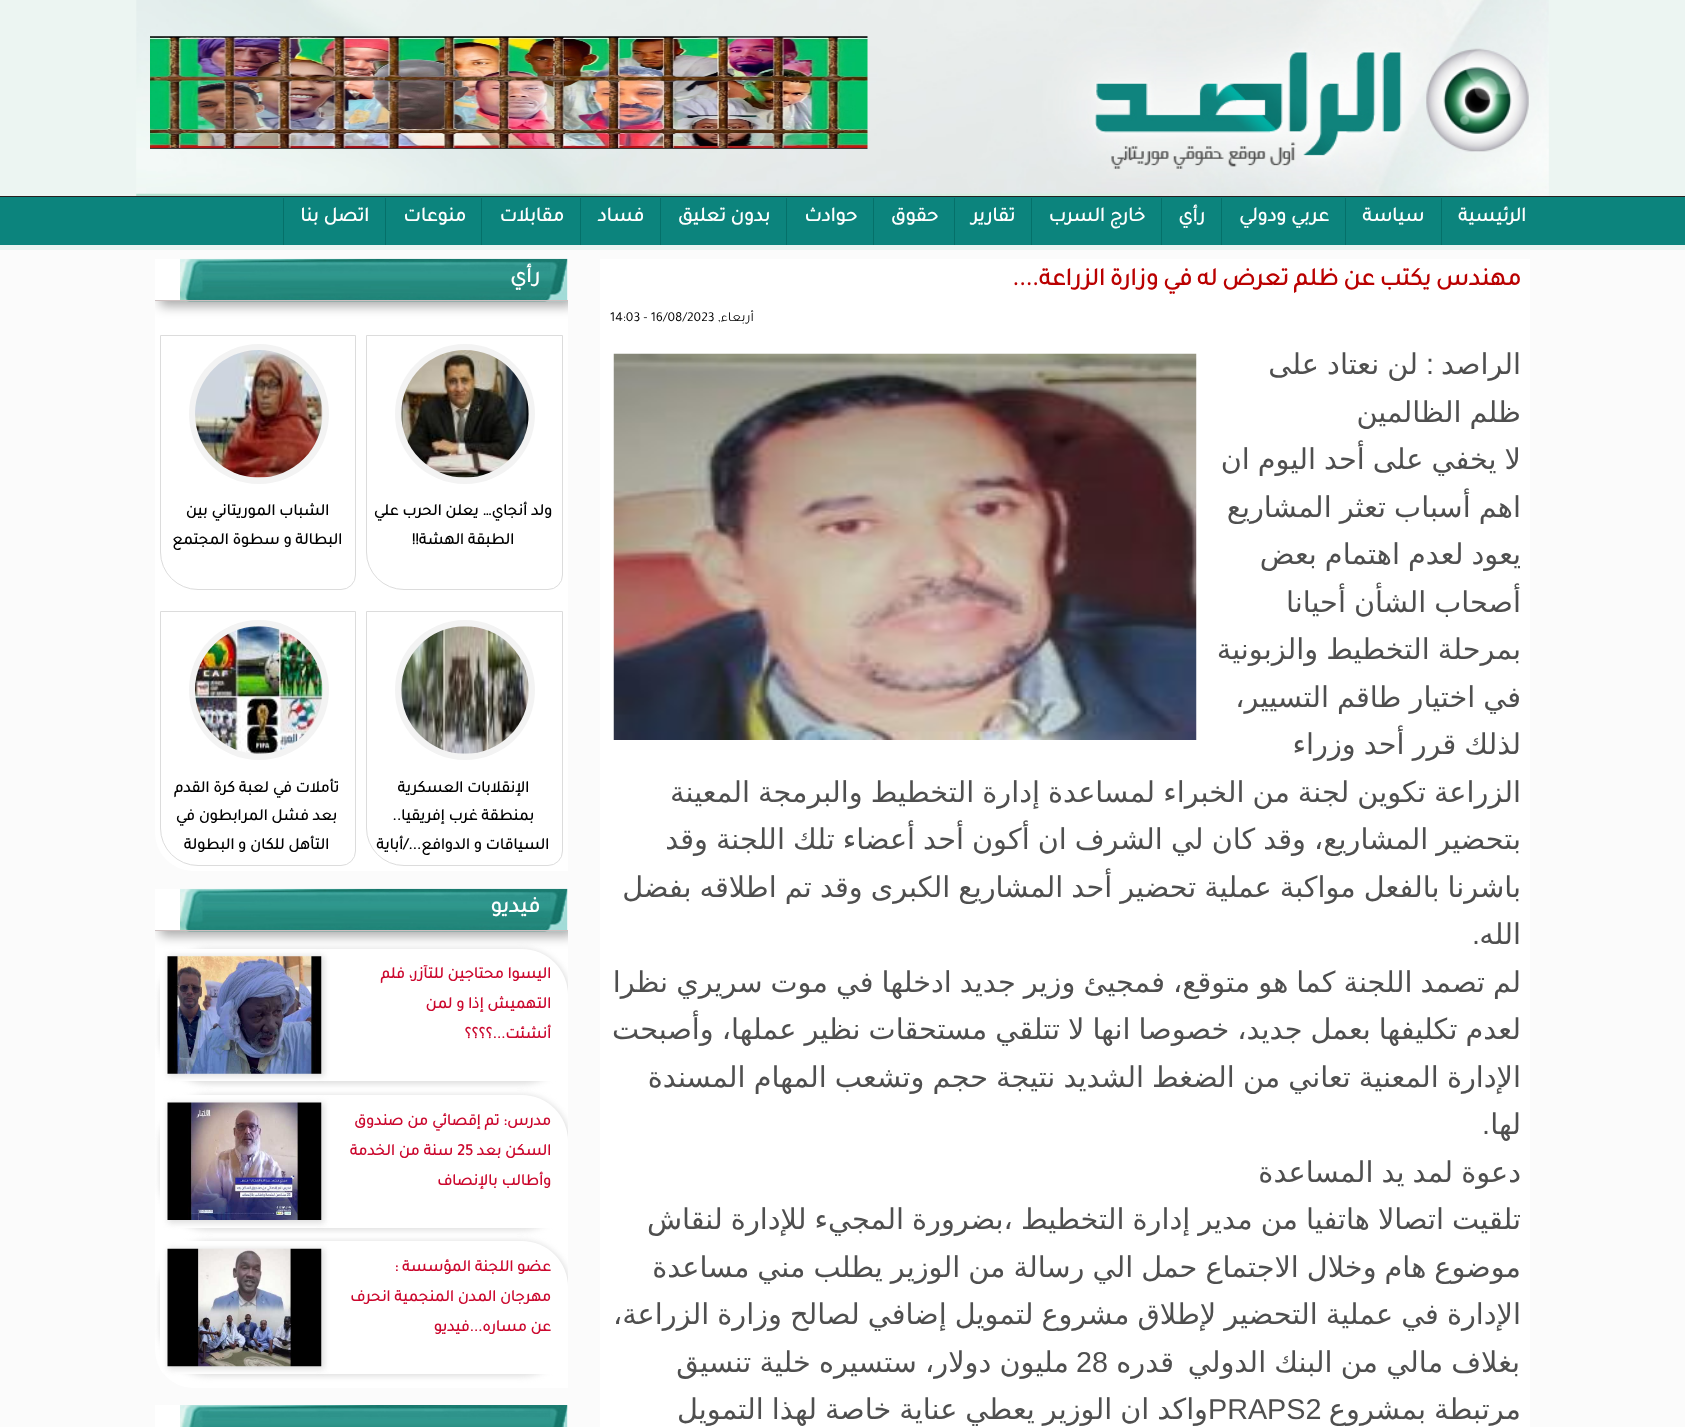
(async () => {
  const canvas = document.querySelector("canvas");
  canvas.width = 1685;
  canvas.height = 1427;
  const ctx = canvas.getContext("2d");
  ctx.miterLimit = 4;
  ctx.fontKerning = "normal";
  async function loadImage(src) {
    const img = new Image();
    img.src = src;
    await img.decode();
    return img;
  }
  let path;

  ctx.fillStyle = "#fbfbfb";
  ctx.fillRect(0, 0, 1685, 1427);
  ctx.fillStyle = "#ecf5f2";
  ctx.fillRect(0, 0, 1685, 250);
  ctx.drawImage(await loadImage("img/1.png"), 136, 0, 1413, 196);
  ctx.drawImage(await loadImage("img/2.png"), 150, 36, 718, 113);
  for (const [x, y, w, h, color] of [
    [0, 197, 1685, 48, "#0c847d"],
    [0, 196, 1685, 1, "#262020"],
    [1441, 198, 1, 47, "#057069"],
    [1345, 198, 1, 47, "#057069"],
    [1221, 198, 1, 47, "#057069"],
    [1161, 198, 1, 47, "#057069"],
    [1031, 198, 1, 47, "#057069"],
    [954, 198, 1, 47, "#057069"],
    [873, 198, 1, 47, "#057069"],
    [786, 198, 1, 47, "#057069"],
    [660, 198, 1, 47, "#057069"],
    [580, 198, 1, 47, "#057069"],
    [481, 198, 1, 47, "#057069"],
    [385, 198, 1, 47, "#057069"],
    [283, 198, 1, 47, "#057069"],
    [600, 259, 930, 1168, "#ffffff"],
  ]) {
    ctx.fillStyle = color;
    ctx.fillRect(x, y, w, h);
  }
  ctx.drawImage(await loadImage("img/3.png"), 613, 353, 584, 387);
  ctx.beginPath();
  ctx.roundRect(155, 259, 413, 612, [0, 0, 0, 38]);
  ctx.fill();
  ctx.save();
  path = new Path2D("M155 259H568V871H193C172 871 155 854 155 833Z");
  ctx.clip(path);
  path = new Path2D("M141 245H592V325H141ZM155 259H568V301H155Z");
  ctx.clip(path, "evenodd");
  ctx.fillStyle = "rgba(0, 0, 0, 0.34)";
  ctx.filter = "blur(6px)";
  ctx.beginPath();
  ctx.rect(160, 264, 413, 42);
  ctx.fill();
  ctx.filter = "none";
  ctx.restore();
  ctx.drawImage(await loadImage("img/4.png"), 180, 258, 388, 44);
  ctx.fillStyle = "#cec0c0";
  ctx.fillRect(155, 300, 413, 1);
  ctx.beginPath();
  ctx.roundRect(366.5, 335.5, 196, 254, [0, 0, 14.5, 37.5]);
  ctx.strokeStyle = "#dcdcdc";
  ctx.stroke();
  ctx.fillStyle = "#f3f3f3";
  path = new Path2D("M465 344C504 344 535 375 535 414C535 453 504 484 465 484C426 484 395 453 395 414C395 375 426 344 465 344Z");
  ctx.fill(path);
  ctx.drawImage(await loadImage("img/5.png"), 401, 350, 128, 128);
  ctx.beginPath();
  ctx.roundRect(160.5, 335.5, 195, 254, [0, 0, 14.5, 37.5]);
  ctx.stroke();
  path = new Path2D("M259 344C298 344 329 375 329 414C329 453 298 484 259 484C220 484 189 453 189 414C189 375 220 344 259 344Z");
  ctx.fill(path);
  ctx.drawImage(await loadImage("img/6.png"), 195, 350, 128, 128);
  ctx.beginPath();
  ctx.roundRect(366.5, 611.5, 196, 254, [0, 0, 14.5, 37.5]);
  ctx.stroke();
  path = new Path2D("M465 620C504 620 535 651 535 690C535 729 504 760 465 760C426 760 395 729 395 690C395 651 426 620 465 620Z");
  ctx.fill(path);
  ctx.drawImage(await loadImage("img/7.png"), 401, 626, 128, 128);
  ctx.beginPath();
  ctx.roundRect(160.5, 611.5, 195, 254, [0, 0, 14.5, 37.5]);
  ctx.stroke();
  path = new Path2D("M259 620C298 620 329 651 329 690C329 729 298 760 259 760C220 760 189 729 189 690C189 651 220 620 259 620Z");
  ctx.fill(path);
  ctx.drawImage(await loadImage("img/8.png"), 195, 626, 128, 128);
  ctx.fillStyle = "#ffffff";
  ctx.beginPath();
  ctx.roundRect(155, 889, 413, 499, [0, 0, 0, 38]);
  ctx.fill();
  ctx.save();
  path = new Path2D("M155 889H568V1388H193C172 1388 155 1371 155 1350Z");
  ctx.clip(path);
  path = new Path2D("M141 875H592V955H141ZM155 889H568V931H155Z");
  ctx.clip(path, "evenodd");
  ctx.fillStyle = "rgba(0, 0, 0, 0.34)";
  ctx.filter = "blur(6px)";
  ctx.beginPath();
  ctx.rect(160, 894, 413, 42);
  ctx.fill();
  ctx.filter = "none";
  ctx.restore();
  ctx.drawImage(await loadImage("img/4.png"), 180, 888, 388, 44);
  ctx.fillStyle = "#cec0c0";
  ctx.fillRect(155, 930, 413, 1);
  ctx.save();
  path = new Path2D("M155 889H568V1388H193C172 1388 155 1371 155 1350Z");
  ctx.clip(path);
  ctx.fillStyle = "#dddddd";
  ctx.filter = "blur(3px)";
  ctx.beginPath();
  ctx.roundRect(160, 949, 410, 135, 48);
  ctx.fill();
  ctx.filter = "none";
  ctx.restore();
  ctx.fillStyle = "#ffffff";
  ctx.beginPath();
  ctx.roundRect(160, 949, 408, 132, [0, 46, 0, 0]);
  ctx.fill();
  ctx.fillStyle = "#dddddd";
  ctx.filter = "blur(3px)";
  ctx.beginPath();
  ctx.rect(168, 956, 156, 120);
  ctx.fill();
  ctx.filter = "none";
  ctx.drawImage(await loadImage("img/9.png"), 167, 956, 155, 118);
  ctx.save();
  path = new Path2D("M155 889H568V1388H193C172 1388 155 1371 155 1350Z");
  ctx.clip(path);
  ctx.filter = "blur(3px)";
  ctx.beginPath();
  ctx.roundRect(160, 1095, 410, 135, 48);
  ctx.fill();
  ctx.filter = "none";
  ctx.restore();
  ctx.fillStyle = "#ffffff";
  ctx.beginPath();
  ctx.roundRect(160, 1095, 408, 133, [0, 46, 0, 0]);
  ctx.fill();
  ctx.fillStyle = "#dddddd";
  ctx.filter = "blur(3px)";
  ctx.beginPath();
  ctx.rect(168, 1103, 156, 120);
  ctx.fill();
  ctx.filter = "none";
  ctx.drawImage(await loadImage("img/10.png"), 167, 1102, 155, 118);
  ctx.save();
  path = new Path2D("M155 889H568V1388H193C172 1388 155 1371 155 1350Z");
  ctx.clip(path);
  ctx.filter = "blur(3px)";
  ctx.beginPath();
  ctx.roundRect(160, 1241, 410, 135, 48);
  ctx.fill();
  ctx.filter = "none";
  ctx.restore();
  ctx.save();
  ctx.beginPath();
  ctx.roundRect(155, 889, 413, 499, [0, 0, 0, 38]);
  ctx.clip();
  ctx.fillStyle = "#ffffff";
  ctx.beginPath();
  ctx.roundRect(160, 1241, 408, 133, [0, 46, 0, 0]);
  ctx.fill();
  ctx.restore();
  ctx.filter = "blur(3px)";
  ctx.beginPath();
  ctx.rect(168, 1249, 156, 120);
  ctx.fill();
  ctx.filter = "none";
  ctx.drawImage(await loadImage("img/11.png"), 167, 1248, 155, 119);
  ctx.fillStyle = "#ffffff";
  ctx.fillRect(155, 1405, 413, 22);
  ctx.save();
  path = new Path2D("M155 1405H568V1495H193C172 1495 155 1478 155 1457Z");
  ctx.clip(path);
  path = new Path2D("M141 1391H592V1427H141ZM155 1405H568V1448H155Z");
  ctx.clip(path, "evenodd");
  ctx.fillStyle = "rgba(0, 0, 0, 0.34)";
  ctx.filter = "blur(6px)";
  ctx.beginPath();
  ctx.rect(160, 1410, 413, 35);
  ctx.fill();
  ctx.filter = "none";
  ctx.restore();
  ctx.drawImage(await loadImage("img/12.png"), 180, 1405, 388, 22);
  ctx.direction = "rtl";
  ctx.font = "bold 20px Tajawal";
  for (const [text, x, y] of [
    ["الرئيسية", 1526, 221],
    ["سياسة", 1424, 221],
    ["عربي ودولي", 1329, 221],
    ["رأي", 1205, 221],
    ["خارج السرب", 1145, 221],
    ["تقارير", 1015, 221],
    ["حقوق", 938, 221],
    ["حوادث", 857, 221],
    ["بدون تعليق", 770, 221],
    ["فساد", 644, 221],
    ["مقابلات", 564, 221],
    ["منوعات", 466, 221],
    ["اتصل بنا", 369, 221],
  ]) {
    ctx.fillText(text, x, y);
  }
  ctx.wordSpacing = "-1.25px";
  ctx.font = "bold 25px Tajawal";
  ctx.fillStyle = "#ba0000";
  ctx.fillText("مهندس يكتب عن ظلم تعرض له في وزارة الزراعة....", 1521, 285);
  ctx.wordSpacing = "0px";
  ctx.font = "13.75px Tajawal";
  ctx.fillStyle = "#000000";
  ctx.fillText("أربعاء,", 754, 321);
  ctx.direction = "ltr";
  ctx.fillText("14:03 - 16/08/2023", 610, 321);
  ctx.direction = "rtl";
  ctx.font = "28.75px DejaVu Sans";
  ctx.fillStyle = "#4f4f4f";
  ctx.fillText("الراصد", 1521, 374);
  ctx.font = "28.75px Liberation Sans";
  ctx.fillText(":", 1434, 374);
  ctx.wordSpacing = "-1px";
  ctx.font = "28.75px DejaVu Sans";
  ctx.fillText("لن نعتاد على", 1418, 374);
  ctx.wordSpacing = "-1.1px";
  for (const [text, x, y] of [
    ["ظلم الظالمين", 1521, 422],
    ["لا يخفي على أحد اليوم ان", 1521, 469],
    ["اهم أسباب تعثر المشاريع", 1521, 517],
    ["يعود لعدم اهتمام بعض", 1521, 564],
    ["أصحاب الشأن أحيانا", 1521, 612],
    ["بمرحلة التخطيط والزبونية", 1521, 659],
    ["في اختيار طاقم التسيير،", 1521, 707],
    ["لذلك قرر أحد وزراء", 1521, 754],
    ["الزراعة تكوين لجنة من الخبراء لمساعدة إدارة التخطيط والبرمجة المعينة", 1521, 802],
  ]) {
    ctx.fillText(text, x, y);
  }
  ctx.save();
  ctx.beginPath();
  ctx.rect(600, 259, 930, 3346);
  ctx.clip();
  ctx.fillText("بتحضير المشاريع، وقد كان لي الشرف ان أكون أحد أعضاء تلك اللجنة وقد", 1521, 849);
  ctx.fillText("باشرنا بالفعل مواكبة عملية تحضير أحد المشاريع الكبرى وقد تم اطلاقه بفضل", 1521, 897);
  ctx.restore();
  ctx.wordSpacing = "0px";
  ctx.fillText("الله", 1521, 944);
  ctx.font = "28.75px Liberation Sans";
  ctx.fillText(".", 1480, 944);
  ctx.save();
  ctx.beginPath();
  ctx.rect(600, 259, 930, 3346);
  ctx.clip();
  ctx.wordSpacing = "-1.1px";
  ctx.font = "28.75px DejaVu Sans";
  ctx.fillText("لم تصمد اللجنة كما هو متوقع، فمجيئ وزير جديد ادخلها في موت سريري نظرا", 1521, 992);
  ctx.fillText("لعدم تكليفها بعمل جديد، خصوصا انها لا تتلقي مستحقات نظير عملها، وأصبحت", 1521, 1039);
  ctx.restore();
  ctx.wordSpacing = "-1.1px";
  ctx.font = "28.75px DejaVu Sans";
  ctx.fillText("الإدارة المعنية تعاني من الضغط الشديد نتيجة حجم وتشعب المهام المسندة", 1521, 1087);
  ctx.wordSpacing = "0px";
  ctx.fillText("لها", 1521, 1134);
  ctx.font = "28.75px Liberation Sans";
  ctx.fillText(".", 1490, 1134);
  ctx.wordSpacing = "-1.1px";
  ctx.font = "28.75px DejaVu Sans";
  ctx.fillText("دعوة لمد يد المساعدة", 1521, 1182);
  ctx.save();
  ctx.beginPath();
  ctx.rect(600, 259, 930, 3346);
  ctx.clip();
  for (const [text, x, y] of [
    ["تلقيت اتصالا هاتفيا من مدير إدارة التخطيط ،بضرورة المجيء للإدارة لنقاش", 1521, 1229],
    ["موضوع هام وخلال الاجتماع حمل الي رسالة من الوزير يطلب مني مساعدة", 1521, 1277],
    ["الإدارة في عملية التحضير لإطلاق مشروع لتمويل إضافي لصالح وزارة الزراعة،", 1521, 1324],
  ]) {
    ctx.fillText(text, x, y);
  }
  ctx.restore();
  ctx.wordSpacing = "-1px";
  ctx.fillText("بغلاف مالي من البنك الدولي", 1520, 1372);
  ctx.wordSpacing = "0px";
  ctx.fillText("قدره", 1174, 1372);
  ctx.direction = "ltr";
  ctx.font = "28.75px Liberation Sans";
  ctx.fillText("28", 1076, 1372);
  ctx.wordSpacing = "-1px";
  ctx.direction = "rtl";
  ctx.font = "28.75px DejaVu Sans";
  ctx.fillText("مليون دولار، ستسيره خلية تنسيق", 1069, 1372);
  ctx.wordSpacing = "-1.1px";
  ctx.fillText("مرتبطة بمشروع", 1521, 1419);
  ctx.fillText("واكد ان الوزير يعطي عناية خاصة لهذا التمويل", 1208, 1419);
  ctx.wordSpacing = "0px";
  ctx.direction = "ltr";
  ctx.font = "28.75px Liberation Sans";
  ctx.fillText("PRAPS2", 1208, 1419);
  ctx.direction = "rtl";
  ctx.font = "bold 22.5px Tajawal";
  ctx.fillStyle = "#ffffff";
  ctx.fillText("رأي", 540, 282);
  ctx.font = "bold 16.25px Tajawal";
  ctx.fillStyle = "#000000";
  for (const [text, x, y] of [
    ["ولد أنجاي… يعلن الحرب علي", 552, 515],
    ["الطبقة الهشة!!", 514, 544],
    ["الشباب الموريتاني بين", 329, 515],
    ["البطالة و سطوة المجتمع", 342, 544],
    ["الإنقلابات العسكرية", 529, 792],
    ["بمنطقة غرب إفريقيا..", 534, 820],
    ["السياقات و الدوافع.../أباية", 549, 849],
    ["تأملات في لعبة كرة القدم", 339, 792],
    ["بعد فشل المرابطون في", 337, 820],
    ["التأهل للكان و البطولة", 329, 849],
  ]) {
    ctx.fillText(text, x, y);
  }
  ctx.font = "bold 22.5px Tajawal";
  ctx.fillStyle = "#ffffff";
  ctx.fillText("فيديو", 540, 912);
  ctx.font = "bold 16.25px Tajawal";
  ctx.fillStyle = "#cb082e";
  for (const [text, x, y] of [
    ["اليسوا محتاجين للتآزر، فلم", 551, 978],
    ["التهميش إذا و لمن", 551, 1008],
    ["أنشئت...؟؟؟؟", 551, 1038],
    ["مدرس: تم إقصائي من صندوق", 551, 1125],
    ["السكن بعد", 551, 1155],
  ]) {
    ctx.fillText(text, x, y);
  }
  ctx.direction = "ltr";
  ctx.fillText("25", 457, 1155);
  ctx.direction = "rtl";
  for (const [text, x, y] of [
    ["سنة من الخدمة", 453, 1155],
    ["وأطالب بالإنصاف", 551, 1185],
    ["عضو اللجنة المؤسسة :", 551, 1271],
    ["مهرجان المدن المنجمية انحرف", 551, 1301],
    ["عن مساره...فيديو", 551, 1331],
  ]) {
    ctx.fillText(text, x, y);
  }
})();
